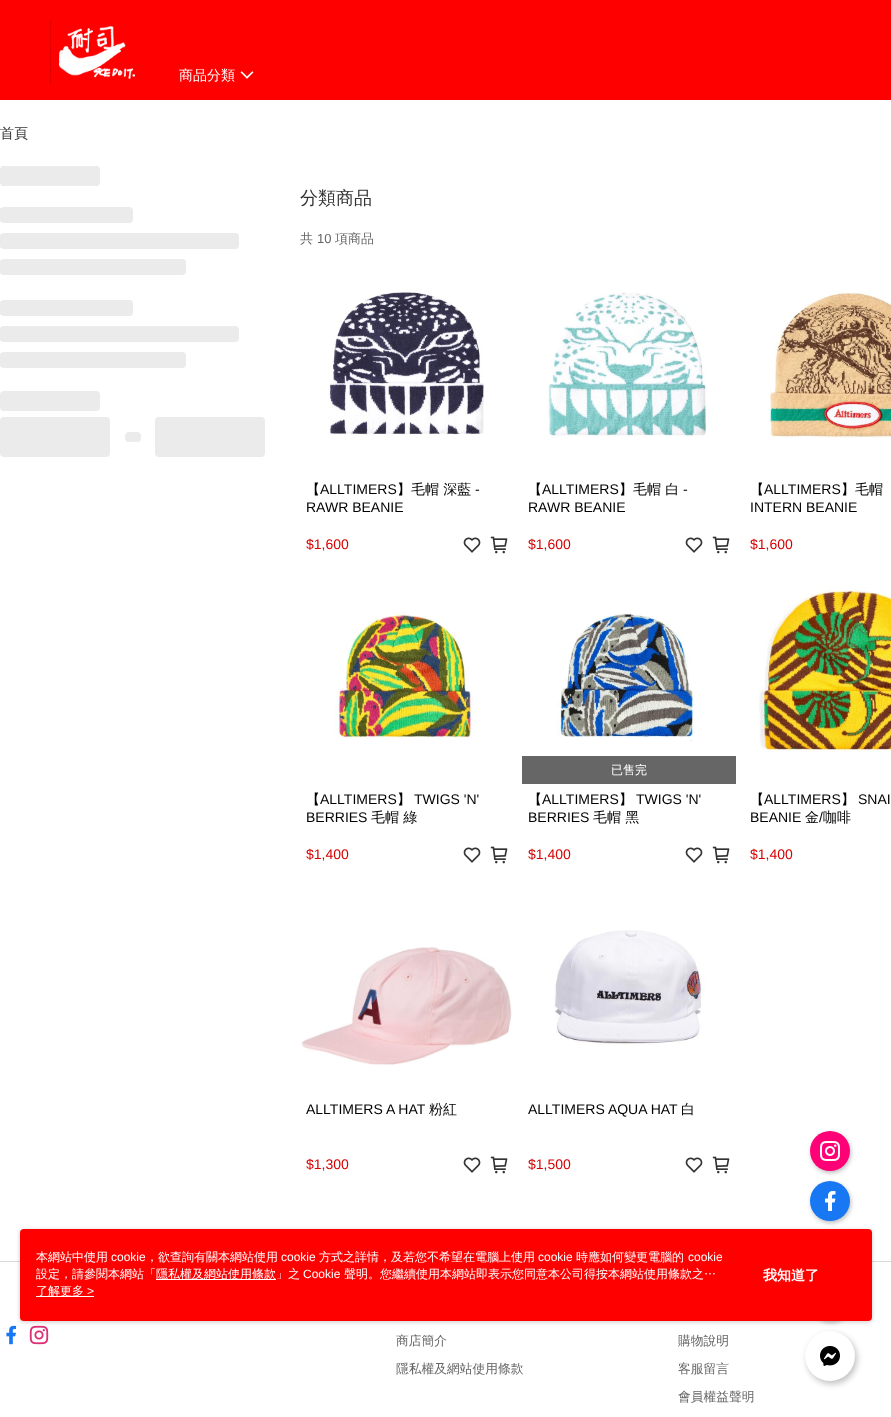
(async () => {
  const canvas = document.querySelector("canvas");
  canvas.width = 891;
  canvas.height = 1417;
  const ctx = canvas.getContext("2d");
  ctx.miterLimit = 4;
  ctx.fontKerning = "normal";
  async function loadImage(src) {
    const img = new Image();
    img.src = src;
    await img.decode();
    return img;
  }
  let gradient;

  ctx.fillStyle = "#ffffff";
  ctx.fillRect(0, 0, 891, 1417);
  ctx.fillStyle = "#ff0001";
  ctx.fillRect(0, 0, 891, 100);
  ctx.drawImage(await loadImage("img/1.png"), 50, 20, 85, 65);
  ctx.drawImage(await loadImage("img/2.png"), 240, 71, 14, 8);
  ctx.fillStyle = "rgba(0, 0, 0, 0.25)";
  ctx.filter = "blur(2px)";
  ctx.beginPath();
  ctx.roundRect(811, 1133, 40, 40, 20);
  ctx.fill();
  ctx.filter = "none";
  ctx.fillStyle = "#ff0076";
  ctx.beginPath();
  ctx.arc(830, 1151, 20, 0, Math.PI * 2);
  ctx.fill();
  ctx.drawImage(await loadImage("img/3.png"), 820, 1141, 20, 20);
  ctx.fillStyle = "rgba(0, 0, 0, 0.25)";
  ctx.filter = "blur(2px)";
  ctx.beginPath();
  ctx.roundRect(811, 1183, 40, 40, 20);
  ctx.fill();
  ctx.filter = "none";
  ctx.fillStyle = "#1877f2";
  ctx.beginPath();
  ctx.arc(830, 1201, 20, 0, Math.PI * 2);
  ctx.fill();
  ctx.drawImage(await loadImage("img/4.png"), 825, 1191, 11, 20);
  ctx.fillStyle = "rgba(0, 0, 0, 0.25)";
  ctx.filter = "blur(2px)";
  ctx.beginPath();
  ctx.roundRect(811, 1283, 40, 40, 20);
  ctx.fill();
  ctx.filter = "none";
  ctx.filter = "blur(3px)";
  ctx.beginPath();
  ctx.roundRect(807, 1334, 50, 50, 25);
  ctx.fill();
  ctx.filter = "none";
  ctx.fillStyle = "#ffffff";
  ctx.beginPath();
  ctx.arc(830, 1356, 25, 0, Math.PI * 2);
  ctx.fill();
  ctx.drawImage(await loadImage("img/5.png"), 820, 1346, 20, 20);
  ctx.fillStyle = "#ebebeb";
  ctx.beginPath();
  ctx.roundRect(0, 166, 100, 20, 4);
  ctx.fill();
  ctx.beginPath();
  ctx.roundRect(0, 207, 133, 16, 4);
  ctx.fill();
  ctx.save();
  ctx.beginPath();
  ctx.roundRect(0, 207, 133, 16, 4);
  ctx.clip();
  gradient = ctx.createLinearGradient(-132, 215, 0.5, 215);
  gradient.addColorStop(0, "#ebebeb");
  gradient.addColorStop(0.5, "#f5f5f5");
  gradient.addColorStop(1, "#ebebeb");
  ctx.fillStyle = gradient;
  ctx.fillRect(0, 207, 1, 16);
  ctx.restore();
  ctx.beginPath();
  ctx.roundRect(0, 233, 239, 16, 4);
  ctx.fill();
  ctx.save();
  ctx.beginPath();
  ctx.roundRect(0, 233, 239, 16, 4);
  ctx.clip();
  gradient = ctx.createLinearGradient(-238, 241, 0.5, 241);
  gradient.addColorStop(0, "#ebebeb");
  gradient.addColorStop(0.5, "#f5f5f5");
  gradient.addColorStop(1, "#ebebeb");
  ctx.fillStyle = gradient;
  ctx.fillRect(0, 233, 1, 16);
  ctx.restore();
  ctx.beginPath();
  ctx.roundRect(0, 259, 186, 16, 4);
  ctx.fill();
  ctx.save();
  ctx.beginPath();
  ctx.roundRect(0, 259, 186, 16, 4);
  ctx.clip();
  gradient = ctx.createLinearGradient(-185, 267, 0.5, 267);
  gradient.addColorStop(0, "#ebebeb");
  gradient.addColorStop(0.5, "#f5f5f5");
  gradient.addColorStop(1, "#ebebeb");
  ctx.fillStyle = gradient;
  ctx.fillRect(0, 259, 1, 16);
  ctx.restore();
  ctx.beginPath();
  ctx.roundRect(0, 300, 133, 16, 4);
  ctx.fill();
  ctx.save();
  ctx.beginPath();
  ctx.roundRect(0, 300, 133, 16, 4);
  ctx.clip();
  gradient = ctx.createLinearGradient(-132, 308, 0.5, 308);
  gradient.addColorStop(0, "#ebebeb");
  gradient.addColorStop(0.5, "#f5f5f5");
  gradient.addColorStop(1, "#ebebeb");
  ctx.fillStyle = gradient;
  ctx.fillRect(0, 300, 1, 16);
  ctx.restore();
  ctx.beginPath();
  ctx.roundRect(0, 326, 239, 16, 4);
  ctx.fill();
  ctx.save();
  ctx.beginPath();
  ctx.roundRect(0, 326, 239, 16, 4);
  ctx.clip();
  gradient = ctx.createLinearGradient(-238, 334, 0.5, 334);
  gradient.addColorStop(0, "#ebebeb");
  gradient.addColorStop(0.5, "#f5f5f5");
  gradient.addColorStop(1, "#ebebeb");
  ctx.fillStyle = gradient;
  ctx.fillRect(0, 326, 1, 16);
  ctx.restore();
  ctx.beginPath();
  ctx.roundRect(0, 352, 186, 16, 4);
  ctx.fill();
  ctx.save();
  ctx.beginPath();
  ctx.roundRect(0, 352, 186, 16, 4);
  ctx.clip();
  gradient = ctx.createLinearGradient(-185, 360, 0.5, 360);
  gradient.addColorStop(0, "#ebebeb");
  gradient.addColorStop(0.5, "#f5f5f5");
  gradient.addColorStop(1, "#ebebeb");
  ctx.fillStyle = gradient;
  ctx.fillRect(0, 352, 1, 16);
  ctx.restore();
  ctx.beginPath();
  ctx.roundRect(0, 391, 100, 20, 4);
  ctx.fill();
  ctx.beginPath();
  ctx.roundRect(0, 417, 110, 40, 4);
  ctx.fill();
  ctx.beginPath();
  ctx.roundRect(125, 432, 16, 10, 4);
  ctx.fill();
  ctx.beginPath();
  ctx.roundRect(155, 417, 110, 40, 4);
  ctx.fill();
  ctx.drawImage(await loadImage("img/6.png"), 326, 292, 158, 144);
  ctx.drawImage(await loadImage("img/7.png"), 463, 537, 18, 16);
  ctx.drawImage(await loadImage("img/8.png"), 490, 536, 18, 18);
  ctx.drawImage(await loadImage("img/9.png"), 548, 292, 159, 147);
  ctx.drawImage(await loadImage("img/7.png"), 685, 537, 18, 16);
  ctx.drawImage(await loadImage("img/8.png"), 712, 536, 18, 18);
  ctx.drawImage(await loadImage("img/10.png"), 770, 291, 121, 147);
  ctx.drawImage(await loadImage("img/11.png"), 334, 612, 139, 127);
  ctx.drawImage(await loadImage("img/7.png"), 463, 847, 18, 16);
  ctx.drawImage(await loadImage("img/8.png"), 490, 846, 18, 18);
  ctx.drawImage(await loadImage("img/12.png"), 556, 610, 139, 132);
  ctx.fillStyle = "#666666";
  ctx.fillRect(522, 756, 214, 28);
  ctx.drawImage(await loadImage("img/7.png"), 685, 847, 18, 16);
  ctx.drawImage(await loadImage("img/8.png"), 712, 846, 18, 18);
  ctx.drawImage(await loadImage("img/13.png"), 759, 587, 132, 166);
  ctx.drawImage(await loadImage("img/14.png"), 301, 947, 211, 118);
  ctx.drawImage(await loadImage("img/7.png"), 463, 1157, 18, 16);
  ctx.drawImage(await loadImage("img/8.png"), 490, 1156, 18, 18);
  ctx.drawImage(await loadImage("img/15.png"), 553, 930, 152, 115);
  ctx.drawImage(await loadImage("img/7.png"), 685, 1157, 18, 16);
  ctx.drawImage(await loadImage("img/8.png"), 712, 1156, 18, 18);
  ctx.fillStyle = "#dadada";
  ctx.fillRect(0, 1261, 891, 1);
  ctx.drawImage(await loadImage("img/16.png"), 6, 1325, 11, 20);
  ctx.drawImage(await loadImage("img/17.png"), 29, 1325, 20, 20);
  ctx.fillStyle = "rgba(151, 151, 151, 0.5)";
  ctx.filter = "blur(2px)";
  ctx.beginPath();
  ctx.roundRect(20, 1230, 852, 92, 4);
  ctx.fill();
  ctx.filter = "none";
  ctx.fillStyle = "#ff0001";
  ctx.beginPath();
  ctx.roundRect(20, 1229, 852, 92, 4);
  ctx.fill();
  ctx.fillStyle = "#ffffff";
  ctx.fillRect(156, 1279, 120, 1);
  ctx.fillRect(36, 1296, 58, 1);
  ctx.font = "500 14px WenQuanYi Zen Hei";
  ctx.fillText("商品分類", 179, 80);
  ctx.fillStyle = "#333333";
  ctx.fillText("首頁", 0, 138);
  ctx.font = "500 18px WenQuanYi Zen Hei";
  ctx.fillText("分類商品", 300, 204);
  ctx.font = "500 13px WenQuanYi Zen Hei";
  ctx.fillStyle = "#666666";
  ctx.fillText("共", 300, 243);
  ctx.font = "13px Liberation Sans";
  ctx.fillText("10", 317, 243);
  ctx.font = "500 13px WenQuanYi Zen Hei";
  ctx.fillText("項商品", 335, 243);
  ctx.font = "500 14px WenQuanYi Zen Hei";
  ctx.fillStyle = "#000000";
  ctx.fillText("【", 306, 494);
  ctx.font = "14px Liberation Sans";
  ctx.fillText("ALLTIMERS", 320, 494);
  ctx.font = "500 14px WenQuanYi Zen Hei";
  ctx.fillText("】毛帽 深藍", 397, 494);
  ctx.font = "14px Liberation Sans";
  ctx.fillText("-", 475, 494);
  ctx.fillText("RAWR BEANIE", 306, 512);
  ctx.fillStyle = "#d60000";
  ctx.fillText("$1,600", 306, 549);
  ctx.font = "500 14px WenQuanYi Zen Hei";
  ctx.fillStyle = "#000000";
  ctx.fillText("【", 528, 494);
  ctx.font = "14px Liberation Sans";
  ctx.fillText("ALLTIMERS", 542, 494);
  ctx.font = "500 14px WenQuanYi Zen Hei";
  ctx.fillText("】毛帽 白", 619, 494);
  ctx.font = "14px Liberation Sans";
  ctx.fillText("-", 683, 494);
  ctx.fillText("RAWR BEANIE", 528, 512);
  ctx.fillStyle = "#d60000";
  ctx.fillText("$1,600", 528, 549);
  ctx.font = "500 14px WenQuanYi Zen Hei";
  ctx.fillStyle = "#000000";
  ctx.fillText("【", 750, 494);
  ctx.font = "14px Liberation Sans";
  ctx.fillText("ALLTIMERS", 764, 494);
  ctx.font = "500 14px WenQuanYi Zen Hei";
  ctx.fillText("】毛帽", 841, 494);
  ctx.font = "14px Liberation Sans";
  ctx.fillText("INTERN BEANIE", 750, 512);
  ctx.fillStyle = "#d60000";
  ctx.fillText("$1,600", 750, 549);
  ctx.font = "500 14px WenQuanYi Zen Hei";
  ctx.fillStyle = "#000000";
  ctx.fillText("【", 306, 804);
  ctx.font = "14px Liberation Sans";
  ctx.fillText("ALLTIMERS", 320, 804);
  ctx.font = "500 14px WenQuanYi Zen Hei";
  ctx.fillText("】", 397, 804);
  ctx.font = "14px Liberation Sans";
  ctx.fillText("TWIGS 'N'", 414, 804);
  ctx.fillText("BERRIES", 306, 822);
  ctx.font = "500 14px WenQuanYi Zen Hei";
  ctx.fillText("毛帽 綠", 371, 822);
  ctx.font = "14px Liberation Sans";
  ctx.fillStyle = "#d60000";
  ctx.fillText("$1,400", 306, 859);
  ctx.font = "500 12px WenQuanYi Zen Hei";
  ctx.fillStyle = "#ffffff";
  ctx.fillText("已售完", 611, 774);
  ctx.font = "500 14px WenQuanYi Zen Hei";
  ctx.fillStyle = "#000000";
  ctx.fillText("【", 528, 804);
  ctx.font = "14px Liberation Sans";
  ctx.fillText("ALLTIMERS", 542, 804);
  ctx.font = "500 14px WenQuanYi Zen Hei";
  ctx.fillText("】", 619, 804);
  ctx.font = "14px Liberation Sans";
  ctx.fillText("TWIGS 'N'", 636, 804);
  ctx.fillText("BERRIES", 528, 822);
  ctx.font = "500 14px WenQuanYi Zen Hei";
  ctx.fillText("毛帽 黑", 593, 822);
  ctx.font = "14px Liberation Sans";
  ctx.fillStyle = "#d60000";
  ctx.fillText("$1,400", 528, 859);
  ctx.font = "500 14px WenQuanYi Zen Hei";
  ctx.fillStyle = "#000000";
  ctx.fillText("【", 750, 804);
  ctx.font = "14px Liberation Sans";
  ctx.fillText("ALLTIMERS", 764, 804);
  ctx.font = "500 14px WenQuanYi Zen Hei";
  ctx.fillText("】", 841, 804);
  ctx.font = "14px Liberation Sans";
  ctx.fillText("SNAI", 858, 804);
  ctx.fillText("BEANIE", 750, 822);
  ctx.font = "500 14px WenQuanYi Zen Hei";
  ctx.fillText("金", 805, 822);
  ctx.font = "14px Liberation Sans";
  ctx.fillText("/", 819, 822);
  ctx.font = "500 14px WenQuanYi Zen Hei";
  ctx.fillText("咖啡", 823, 822);
  ctx.font = "14px Liberation Sans";
  ctx.fillStyle = "#d60000";
  ctx.fillText("$1,400", 750, 859);
  ctx.fillStyle = "#000000";
  ctx.fillText("ALLTIMERS A HAT", 306, 1114);
  ctx.font = "500 14px WenQuanYi Zen Hei";
  ctx.fillText("粉紅", 429, 1114);
  ctx.font = "14px Liberation Sans";
  ctx.fillStyle = "#d60000";
  ctx.fillText("$1,300", 306, 1169);
  ctx.fillStyle = "#000000";
  ctx.fillText("ALLTIMERS AQUA HAT", 528, 1114);
  ctx.font = "500 14px WenQuanYi Zen Hei";
  ctx.fillText("白", 681, 1114);
  ctx.font = "14px Liberation Sans";
  ctx.fillStyle = "#d60000";
  ctx.fillText("$1,500", 528, 1169);
  ctx.font = "500 12px WenQuanYi Zen Hei";
  ctx.fillStyle = "#ffffff";
  ctx.fillText("本網站中使用", 36, 1261);
  ctx.font = "12px Liberation Sans";
  ctx.fillText("cookie", 111, 1261);
  ctx.font = "500 12px WenQuanYi Zen Hei";
  ctx.fillText("，欲查詢有關本網站使用", 146, 1261);
  ctx.font = "12px Liberation Sans";
  ctx.fillText("cookie", 281, 1261);
  ctx.font = "500 12px WenQuanYi Zen Hei";
  ctx.fillText("方式之詳情，及若您不希望在電腦上使用", 319, 1261);
  ctx.font = "12px Liberation Sans";
  ctx.fillText("cookie", 538, 1261);
  ctx.font = "500 12px WenQuanYi Zen Hei";
  ctx.fillText("時應如何變更電腦的", 576, 1261);
  ctx.font = "12px Liberation Sans";
  ctx.fillText("cookie", 688, 1261);
  ctx.save();
  ctx.beginPath();
  ctx.rect(36, 1249, 690, 34);
  ctx.clip();
  ctx.font = "500 12px WenQuanYi Zen Hei";
  ctx.fillText("設定，請參閱本網站「", 36, 1278);
  ctx.restore();
  ctx.font = "500 12px WenQuanYi Zen Hei";
  ctx.fillText("隱私權及網站使用條款」之", 156, 1278);
  ctx.font = "12px Liberation Sans";
  ctx.fillText("Cookie", 303, 1278);
  ctx.font = "500 12px WenQuanYi Zen Hei";
  ctx.fillText("聲明。您繼續使用本網站即表示您同意本公司得按本網站使用條款之…", 344, 1278);
  ctx.fillText("了解更多", 36, 1295);
  ctx.font = "12px Liberation Sans";
  ctx.fillText(">", 87, 1295);
  ctx.font = "bold 14px WenQuanYi Zen Hei";
  ctx.fillText("我知道了", 763, 1280);
  ctx.font = "500 12.75px WenQuanYi Zen Hei";
  ctx.fillStyle = "#666666";
  for (const [text, x, y] of [
    ["商店簡介", 396, 1345],
    ["隱私權及網站使用條款", 396, 1373],
    ["購物說明", 678, 1345],
    ["客服留言", 678, 1373],
    ["會員權益聲明", 678, 1401],
  ]) {
    ctx.fillText(text, x, y);
  }
})();
